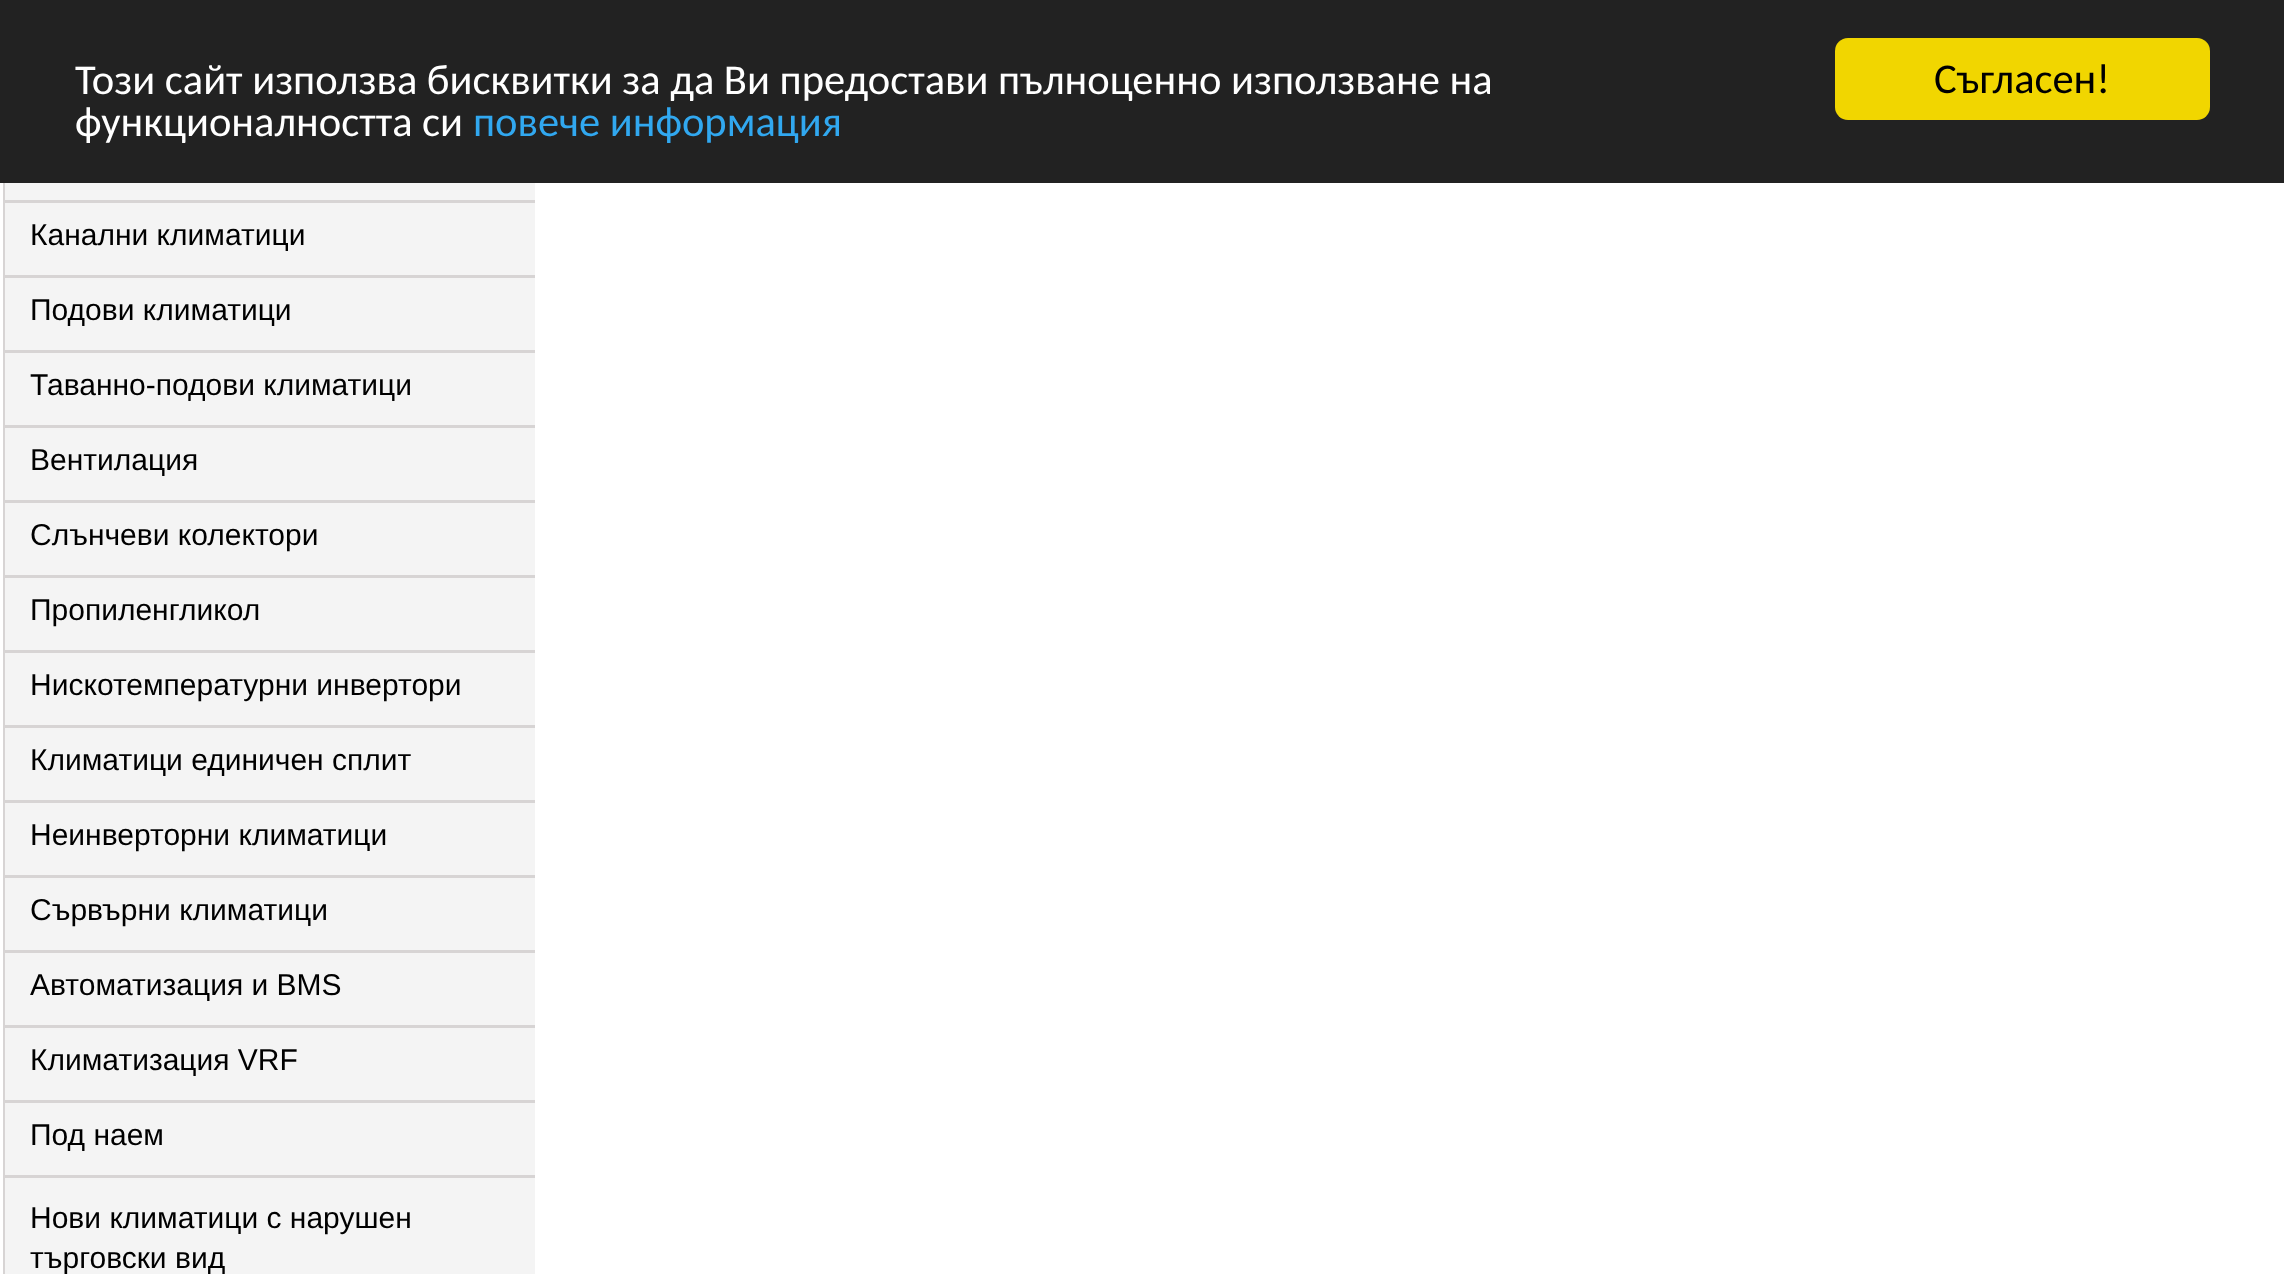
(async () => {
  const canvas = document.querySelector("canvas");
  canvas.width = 2284;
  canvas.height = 1274;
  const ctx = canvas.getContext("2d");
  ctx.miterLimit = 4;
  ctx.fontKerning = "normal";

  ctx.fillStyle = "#ffffff";
  ctx.fillRect(0, 0, 2284, 1274);
  ctx.strokeStyle = "#d7d4d4";
  ctx.lineWidth = 3;
  ctx.strokeRect(4.5, -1.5, 432, 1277);
  ctx.fillStyle = "#222222";
  ctx.fillRect(0, 0, 2284, 183);
  ctx.fillStyle = "#f1d600";
  ctx.beginPath();
  ctx.roundRect(1835, 38, 375, 82, 13);
  ctx.fill();
  for (const [x, y, w, h, color] of [
    [5, 183, 530, 1091, "#f4f4f4"],
    [5, 200, 530, 3, "#d7d4d4"],
    [5, 275, 530, 3, "#d7d4d4"],
    [5, 350, 530, 3, "#d7d4d4"],
    [5, 425, 530, 3, "#d7d4d4"],
    [5, 500, 530, 3, "#d7d4d4"],
    [5, 575, 530, 3, "#d7d4d4"],
    [5, 650, 530, 3, "#d7d4d4"],
    [5, 725, 530, 3, "#d7d4d4"],
    [5, 800, 530, 3, "#d7d4d4"],
    [5, 875, 530, 3, "#d7d4d4"],
    [5, 950, 530, 3, "#d7d4d4"],
    [5, 1025, 530, 3, "#d7d4d4"],
    [5, 1100, 530, 3, "#d7d4d4"],
    [5, 1175, 530, 3, "#d7d4d4"],
  ]) {
    ctx.fillStyle = color;
    ctx.fillRect(x, y, w, h);
  }
  ctx.font = "42.5px Carlito";
  ctx.fillStyle = "#ffffff";
  ctx.fillText("Този сайт използва бисквитки за да Ви предостави пълноценно използване на", 75, 94);
  ctx.fillText("функционалността си", 75, 136);
  ctx.fillStyle = "#31a8f0";
  ctx.fillText("повече информация", 473, 136);
  ctx.fillStyle = "#000000";
  ctx.fillText("Съгласен!", 1934, 93);
  ctx.font = "30px Liberation Sans";
  for (const [text, x, y] of [
    ["Канални климатици", 30, 245],
    ["Подови климатици", 30, 320],
    ["Таванно-подови климатици", 30, 395],
    ["Вентилация", 30, 470],
    ["Слънчеви колектори", 30, 545],
    ["Пропиленгликол", 30, 620],
    ["Нискотемпературни инвертори", 30, 695],
    ["Климатици единичен сплит", 30, 770],
    ["Неинверторни климатици", 30, 845],
    ["Сървърни климатици", 30, 920],
    ["Автоматизация и BMS", 30, 995],
    ["Климатизация VRF", 30, 1070],
    ["Под наем", 30, 1145],
    ["Нови климатици с нарушен", 30, 1228],
    ["търговски вид", 30, 1268],
  ]) {
    ctx.fillText(text, x, y);
  }
})();
